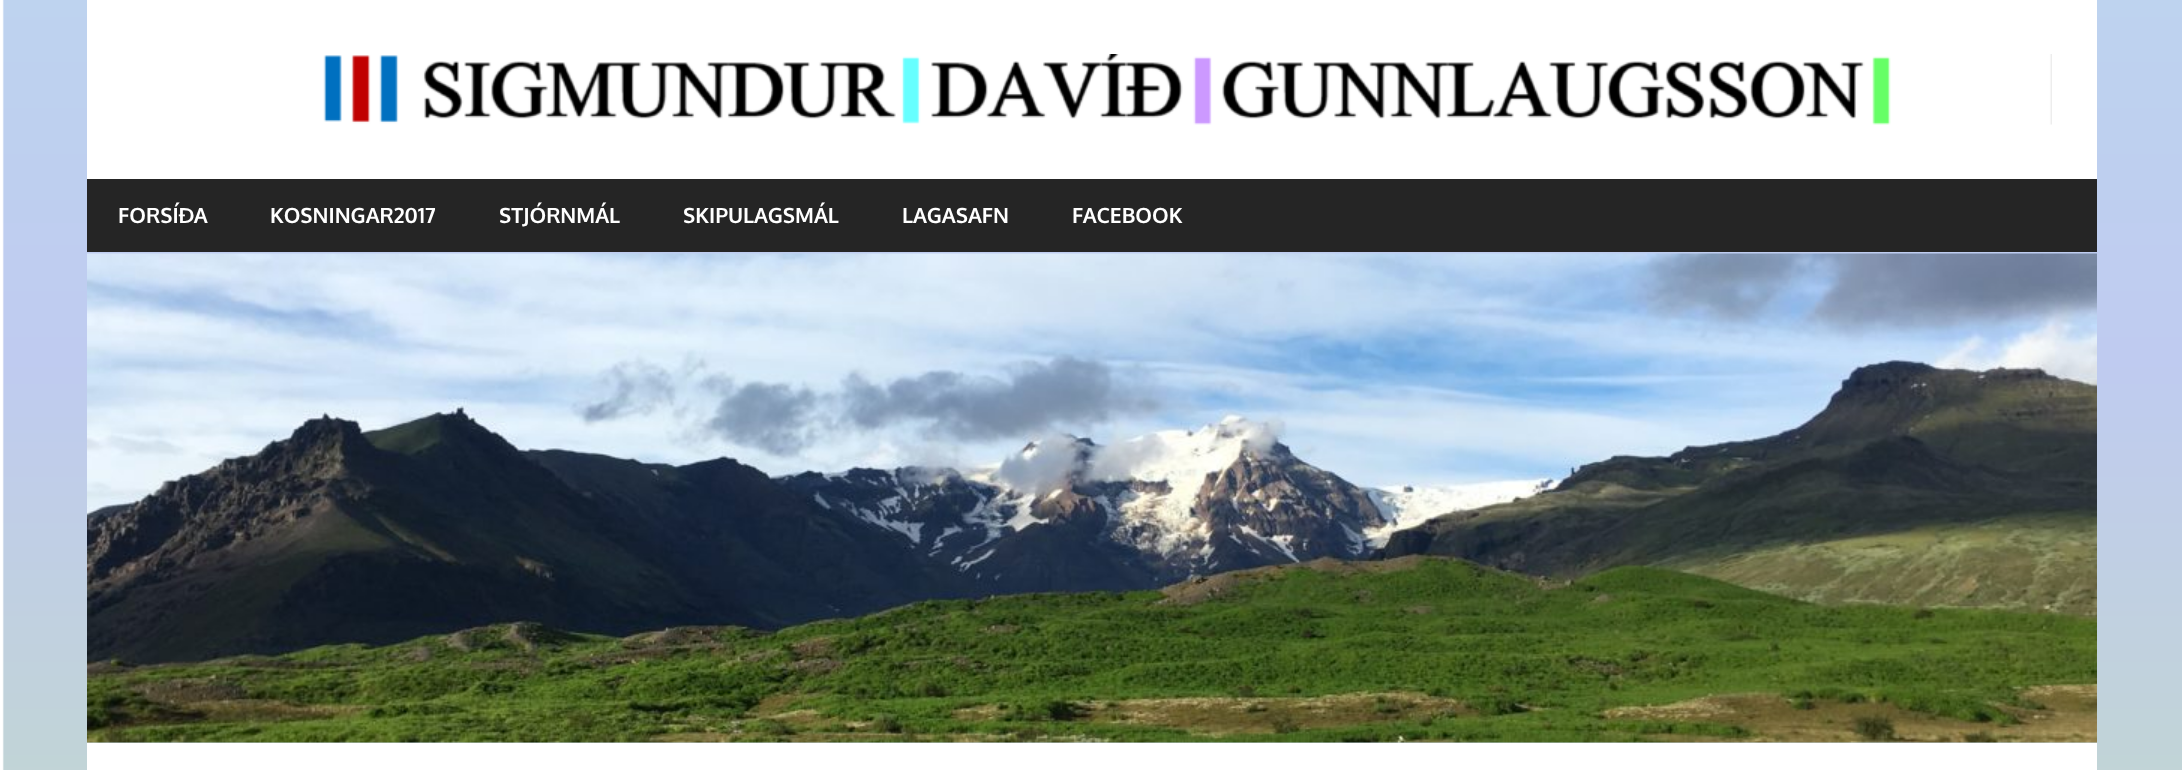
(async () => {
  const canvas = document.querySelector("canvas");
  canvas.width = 2182;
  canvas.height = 770;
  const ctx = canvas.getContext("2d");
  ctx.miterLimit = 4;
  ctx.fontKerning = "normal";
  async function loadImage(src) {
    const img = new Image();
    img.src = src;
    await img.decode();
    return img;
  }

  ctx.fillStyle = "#ffffff";
  ctx.fillRect(0, 0, 2182, 770);
  ctx.drawImage(await loadImage("img/1.png"), 0, 0, 2182, 770);
  ctx.fillRect(87, 0, 2010, 179);
  ctx.drawImage(await loadImage("img/2.png"), 323, 54, 1729, 71);
  ctx.fillStyle = "#252525";
  ctx.fillRect(87, 179, 2010, 73);
  ctx.drawImage(await loadImage("img/3.png"), 87, 253, 2010, 490);
  ctx.fillStyle = "#ffffff";
  ctx.fillRect(87, 743, 2010, 27);
  ctx.font = "bold 21px Oxygen";
  for (const [text, x, y] of [
    ["FORSÍÐA", 118, 223],
    ["KOSNINGAR2017", 270, 223],
    ["STJÓRNMÁL", 499, 223],
    ["SKIPULAGSMÁL", 683, 223],
    ["LAGASAFN", 902, 223],
    ["FACEBOOK", 1072, 223],
  ]) {
    ctx.fillText(text, x, y);
  }
})();
